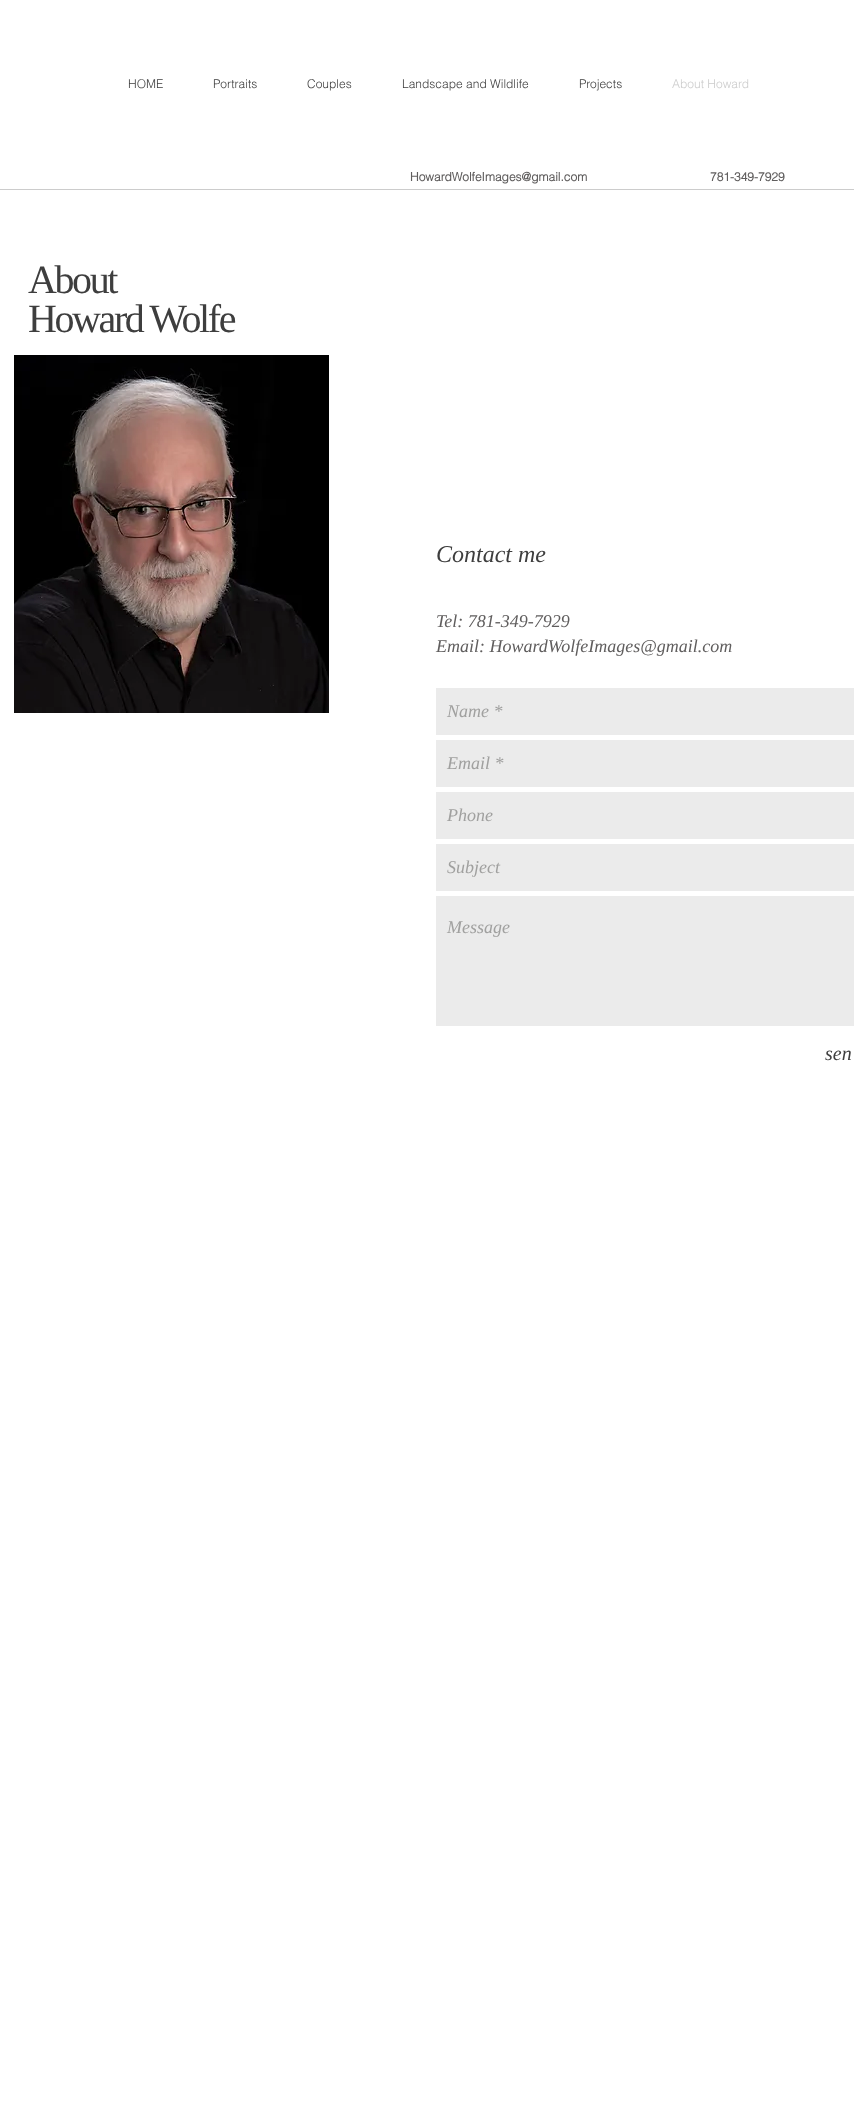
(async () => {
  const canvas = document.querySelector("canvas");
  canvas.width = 854;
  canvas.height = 2110;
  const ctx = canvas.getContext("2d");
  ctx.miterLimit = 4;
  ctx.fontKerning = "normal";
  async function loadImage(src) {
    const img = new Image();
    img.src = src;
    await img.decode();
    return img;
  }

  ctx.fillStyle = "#ffffff";
  ctx.fillRect(0, 0, 854, 2110);
  ctx.fillStyle = "#cccccc";
  ctx.fillRect(0, 189, 854, 1);
  ctx.drawImage(await loadImage("img/1.png"), 14, 355, 315, 358);
  for (const [x, y, w, h, color] of [
    [436, 688, 418, 47, "#ebebeb"],
    [436, 740, 418, 47, "#ebebeb"],
    [436, 792, 418, 47, "#ebebeb"],
    [436, 844, 418, 47, "#ebebeb"],
    [436, 896, 418, 130, "#ebebeb"],
  ]) {
    ctx.fillStyle = color;
    ctx.fillRect(x, y, w, h);
  }
  ctx.font = "300 12px helvetica";
  ctx.fillStyle = "#3e3e3e";
  for (const [text, x, y] of [
    ["HOME", 128, 88],
    ["Portraits", 213, 88],
    ["Couples", 307, 88],
    ["Landscape and Wildlife", 402, 88],
    ["Projects", 579, 88],
  ]) {
    ctx.fillText(text, x, y);
  }
  ctx.fillStyle = "#cccccc";
  ctx.fillText("About Howard", 672, 88);
  ctx.font = "bold 12px helvetica";
  ctx.fillStyle = "#605e5e";
  ctx.fillText("HowardWolfeImages@gmail.com", 410, 181);
  ctx.fillText("781-349-7929", 710, 181);
  ctx.letterSpacing = "-2.4px";
  ctx.font = "40px Liberation Serif";
  ctx.fillStyle = "#3e3e3e";
  ctx.fillText("About", 28, 293);
  ctx.fillText("Howard Wolfe", 28, 332);
  ctx.letterSpacing = "0px";
  ctx.font = "italic 24px Liberation Serif";
  ctx.fillText("Contact me", 436, 562);
  ctx.font = "italic 18px Liberation Serif";
  ctx.fillStyle = "#605e5e";
  ctx.fillText("Tel: 781-349-7929", 436, 627);
  ctx.fillText("Email: HowardWolfeImages@gmail.com", 436, 652);
  ctx.fillStyle = "#a0a09f";
  for (const [text, x, y] of [
    ["Name *", 447, 717],
    ["Email *", 447, 769],
    ["Phone", 447, 821],
    ["Subject", 447, 873],
    ["Message", 447, 933],
  ]) {
    ctx.fillText(text, x, y);
  }
  ctx.font = "italic 20px Liberation Serif";
  ctx.fillStyle = "#3e3e3e";
  ctx.fillText("sen", 825, 1060);
})();
